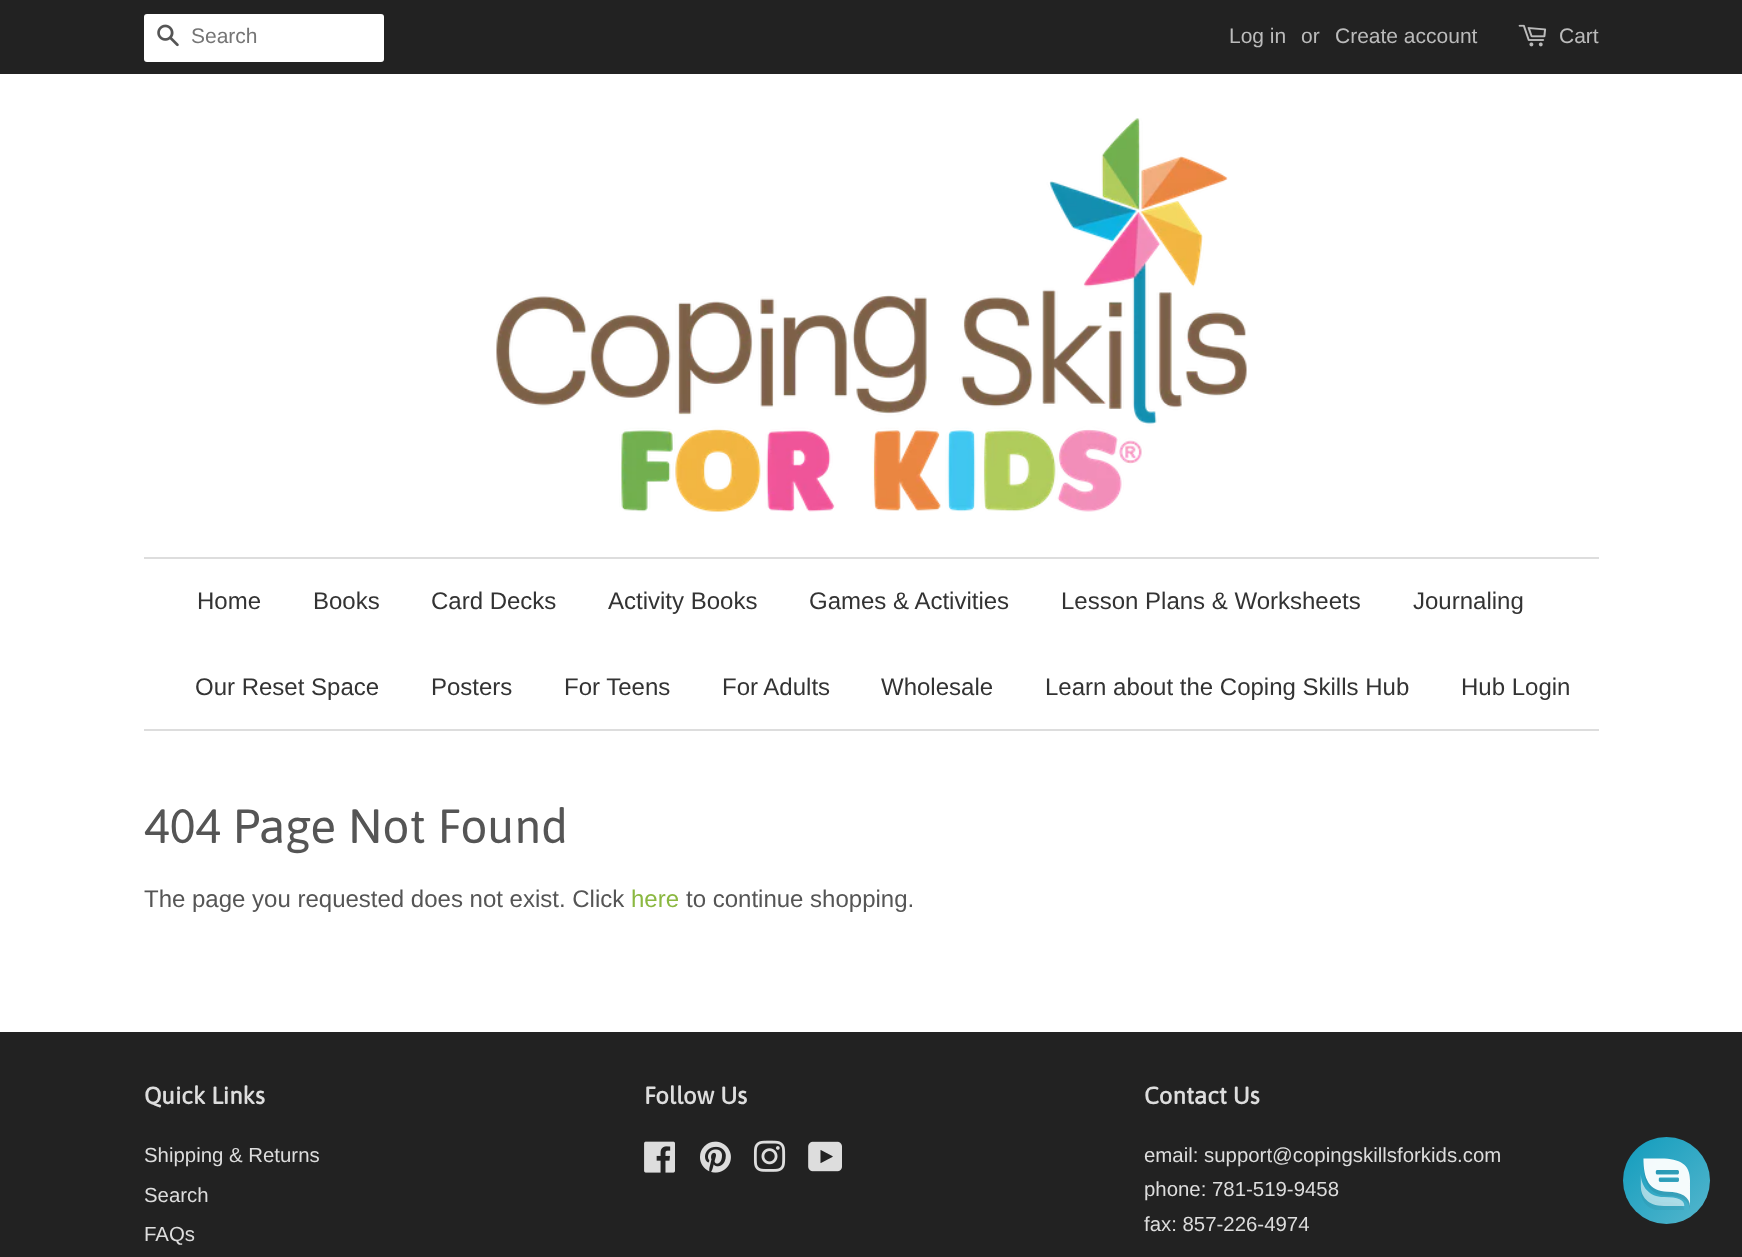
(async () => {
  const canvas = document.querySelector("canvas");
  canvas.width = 1742;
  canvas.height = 1257;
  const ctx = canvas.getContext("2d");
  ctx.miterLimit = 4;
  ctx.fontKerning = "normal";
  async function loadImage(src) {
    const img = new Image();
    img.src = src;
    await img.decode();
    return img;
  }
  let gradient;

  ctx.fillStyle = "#ffffff";
  ctx.fillRect(0, 0, 1742, 1257);
  ctx.fillStyle = "#222222";
  ctx.fillRect(0, 0, 1742, 74);
  ctx.fillStyle = "#ffffff";
  ctx.beginPath();
  ctx.roundRect(144, 14, 240, 48, 3);
  ctx.fill();
  ctx.drawImage(await loadImage("img/1.png"), 157, 24, 22, 23);
  ctx.drawImage(await loadImage("img/2.png"), 1518, 24, 29, 23);
  ctx.drawImage(await loadImage("img/3.png"), 496, 118, 751, 394);
  for (const [x, y, w, h, color] of [
    [144, 557, 1455, 2, "#dddddd"],
    [144, 729, 1455, 2, "#dddddd"],
    [0, 1032, 1742, 225, "#222222"],
  ]) {
    ctx.fillStyle = color;
    ctx.fillRect(x, y, w, h);
  }
  ctx.drawImage(await loadImage("img/4.png"), 644, 1141, 31, 32);
  ctx.drawImage(await loadImage("img/5.png"), 700, 1141, 31, 32);
  ctx.drawImage(await loadImage("img/6.png"), 753, 1140, 33, 32);
  ctx.drawImage(await loadImage("img/7.png"), 808, 1141, 34, 31);
  gradient = ctx.createLinearGradient(1623, 1137, 1710, 1224);
  gradient.addColorStop(0, "#119cbd");
  gradient.addColorStop(1, "#55b6cd");
  ctx.fillStyle = gradient;
  ctx.beginPath();
  ctx.arc(1666.5, 1180.5, 43.5, 0, Math.PI * 2);
  ctx.fill();
  ctx.drawImage(await loadImage("img/8.png"), 1640, 1158, 50, 52);
  ctx.font = "21px Liberation Sans";
  ctx.fillStyle = "#757575";
  ctx.fillText("Search", 191, 43);
  ctx.fillStyle = "#bbbbbb";
  for (const [text, x, y] of [
    ["Log in", 1229, 43],
    ["or", 1301, 43],
    ["Create account", 1335, 43],
    ["Cart", 1559, 43],
  ]) {
    ctx.fillText(text, x, y);
  }
  ctx.font = "24px Liberation Sans";
  ctx.fillStyle = "#333333";
  for (const [text, x, y] of [
    ["Home", 197, 609],
    ["Books", 313, 609],
    ["Card Decks", 431, 609],
    ["Activity Books", 608, 609],
    ["Games & Activities", 809, 609],
    ["Lesson Plans & Worksheets", 1061, 609],
    ["Journaling", 1413, 609],
    ["Our Reset Space", 195, 695],
    ["Posters", 431, 695],
    ["For Teens", 564, 695],
    ["For Adults", 722, 695],
    ["Wholesale", 881, 695],
    ["Learn about the Coping Skills Hub", 1045, 695],
    ["Hub Login", 1461, 695],
  ]) {
    ctx.fillText(text, x, y);
  }
  ctx.font = "48px Asap";
  ctx.fillStyle = "#555555";
  ctx.fillText("404 Page Not Found", 144, 843);
  ctx.font = "24px Liberation Sans";
  ctx.fillText("The page you requested does not exist. Click", 144, 907);
  ctx.fillStyle = "#8bb841";
  ctx.fillText("here", 631, 907);
  ctx.fillStyle = "#555555";
  ctx.fillText("to continue shopping.", 686, 907);
  ctx.font = "bold 24px Asap";
  ctx.fillStyle = "#dddddd";
  ctx.fillText("Quick Links", 144, 1104);
  ctx.font = "20.4px Liberation Sans";
  for (const [text, x, y] of [
    ["Shipping & Returns", 144, 1162],
    ["Search", 144, 1202],
    ["FAQs", 144, 1241],
  ]) {
    ctx.fillText(text, x, y);
  }
  ctx.font = "bold 24px Asap";
  ctx.fillText("Follow Us", 644, 1104);
  ctx.fillText("Contact Us", 1144, 1104);
  ctx.font = "20.4px Liberation Sans";
  for (const [text, x, y] of [
    ["email: support@copingskillsforkids.com", 1144, 1162],
    ["phone: 781-519-9458", 1144, 1196],
    ["fax: 857-226-4974", 1144, 1231],
  ]) {
    ctx.fillText(text, x, y);
  }
})();
